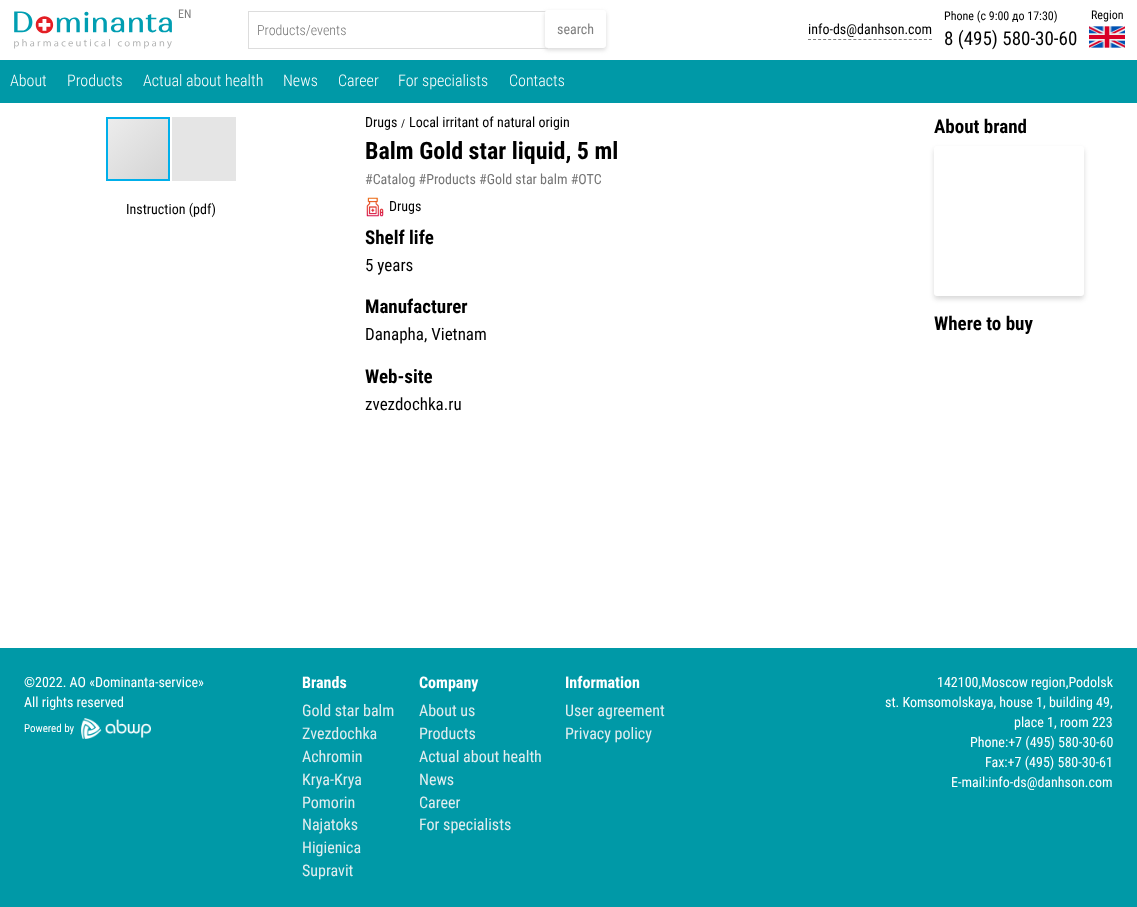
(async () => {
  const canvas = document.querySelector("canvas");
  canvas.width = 1137;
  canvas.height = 907;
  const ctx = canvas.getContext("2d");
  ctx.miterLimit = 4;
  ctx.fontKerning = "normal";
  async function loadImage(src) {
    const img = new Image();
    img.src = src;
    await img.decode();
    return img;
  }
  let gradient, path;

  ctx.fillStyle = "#ffffff";
  ctx.fillRect(0, 0, 1137, 907);
  ctx.drawImage(await loadImage("img/1.png"), 14, 11, 158, 38);
  ctx.strokeStyle = "#dddddd";
  ctx.strokeRect(248.5, 11.5, 299, 37);
  ctx.fillStyle = "#d8d8d8";
  ctx.filter = "blur(2px)";
  ctx.beginPath();
  ctx.roundRect(545, 12, 61, 38, 3);
  ctx.fill();
  ctx.filter = "none";
  ctx.fillStyle = "#ffffff";
  ctx.beginPath();
  ctx.roundRect(545, 10, 61, 38, 3);
  ctx.fill();
  ctx.drawImage(await loadImage("img/2.png"), 1089, 26, 36, 22);
  path = new Path2D("M808 39.5H932");
  ctx.strokeStyle = "#808080";
  ctx.setLineDash([3, 2.04]);
  ctx.stroke(path);
  ctx.fillStyle = "#0099a7";
  ctx.fillRect(0, 60, 1137, 43);
  gradient = ctx.createLinearGradient(108, 119, 168, 179);
  gradient.addColorStop(0, "#ececec");
  gradient.addColorStop(1, "#d4d4d4");
  ctx.fillStyle = gradient;
  ctx.fillRect(108, 119, 60, 60);
  ctx.strokeStyle = "#00afea";
  ctx.lineWidth = 2;
  ctx.setLineDash([]);
  ctx.strokeRect(107, 118, 62, 62);
  ctx.fillStyle = "#e5e5e5";
  ctx.fillRect(172, 117, 64, 64);
  ctx.drawImage(await loadImage("img/3.png"), 366, 197, 18, 20);
  ctx.fillStyle = "#d8d8d8";
  ctx.filter = "blur(2.5px)";
  ctx.beginPath();
  ctx.roundRect(934, 149, 150, 150, 3);
  ctx.fill();
  ctx.filter = "none";
  ctx.fillStyle = "#ffffff";
  ctx.beginPath();
  ctx.roundRect(934, 146, 150, 150, 3);
  ctx.fill();
  ctx.fillStyle = "#0099a7";
  ctx.fillRect(0, 648, 1137, 259);
  ctx.drawImage(await loadImage("img/4.png"), 81, 718, 70, 21);
  ctx.font = "12px Roboto Condensed";
  ctx.fillStyle = "#808080";
  ctx.fillText("EN", 178, 18);
  ctx.font = "300 14px Roboto Condensed";
  ctx.fillStyle = "#757575";
  ctx.fillText("Products/events", 257, 35);
  ctx.font = "14px Roboto Condensed";
  ctx.fillStyle = "#808080";
  ctx.fillText("search", 557, 34);
  ctx.font = "12px Roboto Condensed";
  ctx.fillStyle = "#000000";
  ctx.fillText("Phone (с 9:00 до 17:30)", 944, 20);
  ctx.font = "19px Roboto Condensed";
  ctx.fillText("8 (495) 580-30-60", 944, 45);
  ctx.font = "12px Roboto Condensed";
  ctx.fillText("Region", 1091, 19);
  ctx.font = "14px Roboto Condensed";
  ctx.fillText("info-ds@danhson.com", 808, 34);
  ctx.font = "300 16px Roboto Condensed";
  ctx.fillStyle = "#ffffff";
  for (const [text, x, y] of [
    ["About", 10, 86],
    ["Products", 67, 86],
    ["Actual about health", 143, 86],
    ["News", 283, 86],
    ["Career", 338, 86],
    ["For specialists", 398, 86],
    ["Contacts", 509, 86],
  ]) {
    ctx.fillText(text, x, y);
  }
  ctx.font = "14px Roboto Condensed";
  ctx.fillStyle = "#000000";
  ctx.fillText("Instruction (pdf)", 126, 214);
  ctx.fillText("Drugs", 365, 127);
  ctx.font = "11px Roboto Condensed";
  ctx.fillText("/", 401, 127);
  ctx.font = "14px Roboto Condensed";
  ctx.fillText("Local irritant of natural origin", 409, 127);
  ctx.font = "bold 24px Roboto Condensed";
  ctx.fillText("Balm Gold star liquid, 5 ml", 365, 159);
  ctx.font = "14px Roboto Condensed";
  ctx.fillStyle = "#757575";
  ctx.fillText("#Catalog #Products #Gold star balm #OTC", 365, 184);
  ctx.fillStyle = "#000000";
  ctx.fillText("Drugs", 389, 211);
  ctx.font = "bold 19px Roboto Condensed";
  ctx.fillText("Shelf life", 365, 244);
  ctx.font = "17px Roboto Condensed";
  ctx.fillText("5 years", 365, 271);
  ctx.font = "bold 19px Roboto Condensed";
  ctx.fillText("Manufacturer", 365, 313);
  ctx.font = "17px Roboto Condensed";
  ctx.fillText("Danapha, Vietnam", 365, 340);
  ctx.font = "bold 19px Roboto Condensed";
  ctx.fillText("Web-site", 365, 383);
  ctx.font = "17px Roboto Condensed";
  ctx.fillText("zvezdochka.ru", 365, 410);
  ctx.font = "bold 19px Roboto Condensed";
  ctx.fillText("About brand", 934, 133);
  ctx.fillText("Where to buy", 934, 330);
  ctx.font = "14px Roboto Condensed";
  ctx.fillStyle = "#ffffff";
  ctx.fillText("©2022. AO «Dominanta-service»", 24, 687);
  ctx.fillText("All rights reserved", 24, 707);
  ctx.font = "11px Roboto Condensed";
  ctx.fillText("Powered by", 24, 732);
  ctx.font = "bold 16px Roboto Condensed";
  ctx.fillText("Brands", 302, 688);
  ctx.font = "16px Roboto Condensed";
  ctx.fillStyle = "#e1edef";
  for (const [text, x, y] of [
    ["Gold star balm", 302, 716],
    ["Zvezdochka", 302, 739],
    ["Achromin", 302, 762],
    ["Krya-Krya", 302, 785],
    ["Pomorin", 302, 808],
    ["Najatoks", 302, 830],
    ["Higienica", 302, 853],
    ["Supravit", 302, 876],
  ]) {
    ctx.fillText(text, x, y);
  }
  ctx.font = "bold 16px Roboto Condensed";
  ctx.fillStyle = "#ffffff";
  ctx.fillText("Company", 419, 688);
  ctx.font = "16px Roboto Condensed";
  ctx.fillStyle = "#e1edef";
  for (const [text, x, y] of [
    ["About us", 419, 716],
    ["Products", 419, 739],
    ["Actual about health", 419, 762],
    ["News", 419, 785],
    ["Career", 419, 808],
    ["For specialists", 419, 830],
  ]) {
    ctx.fillText(text, x, y);
  }
  ctx.font = "bold 16px Roboto Condensed";
  ctx.fillStyle = "#ffffff";
  ctx.fillText("Information", 565, 688);
  ctx.font = "16px Roboto Condensed";
  ctx.fillStyle = "#e1edef";
  ctx.fillText("User agreement", 565, 716);
  ctx.fillText("Privacy policy", 565, 739);
  ctx.font = "14px Roboto Condensed";
  ctx.fillStyle = "#ffffff";
  for (const [text, x, y] of [
    ["142100,Moscow region,Podolsk", 937, 687],
    ["st. Komsomolskaya, house 1, building 49,", 885, 707],
    ["place 1, room 223", 1014, 727],
    ["Phone:+7 (495) 580-30-60", 970, 747],
    ["Fax:+7 (495) 580-30-61", 985, 767],
    ["E-mail:info-ds@danhson.com", 951, 787],
  ]) {
    ctx.fillText(text, x, y);
  }
})();
